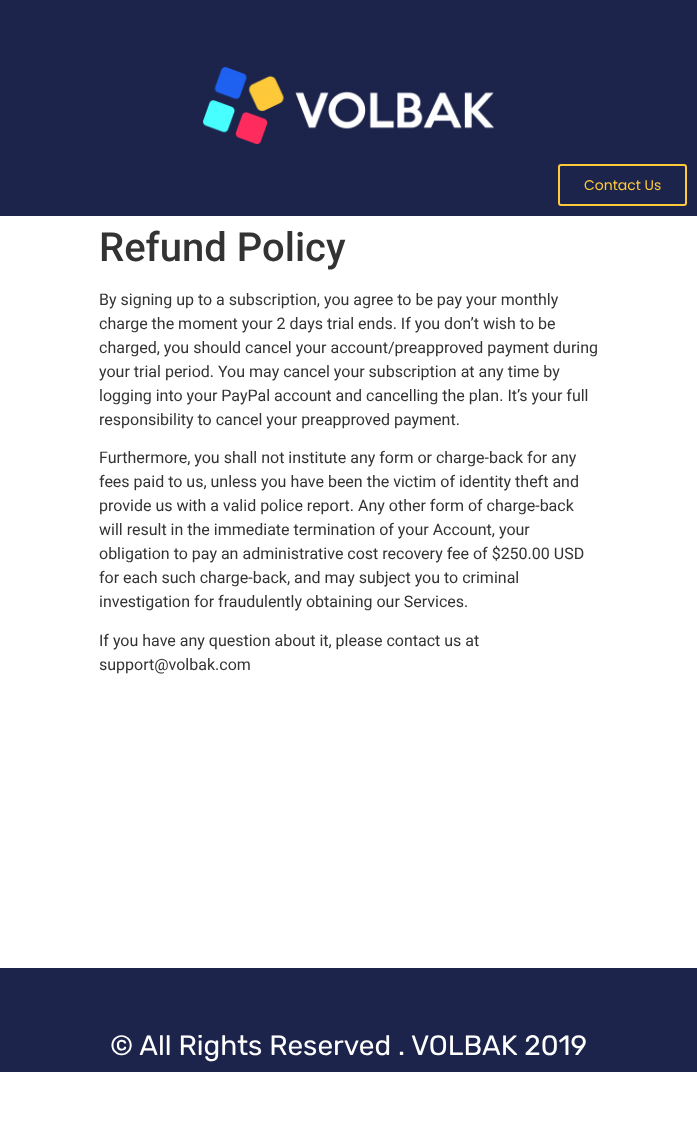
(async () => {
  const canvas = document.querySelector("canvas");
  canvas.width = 697;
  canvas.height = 1140;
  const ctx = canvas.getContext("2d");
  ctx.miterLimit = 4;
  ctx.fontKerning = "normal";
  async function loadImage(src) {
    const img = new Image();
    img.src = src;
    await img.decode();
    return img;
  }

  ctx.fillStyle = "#ffffff";
  ctx.fillRect(0, 0, 697, 1140);
  ctx.fillStyle = "#1c244b";
  ctx.fillRect(0, 0, 697, 216);
  ctx.drawImage(await loadImage("img/1.png"), 203, 67, 291, 77);
  ctx.beginPath();
  ctx.roundRect(559, 165, 127, 40, 2);
  ctx.strokeStyle = "#ffca3a";
  ctx.lineWidth = 2;
  ctx.stroke();
  ctx.fillRect(0, 968, 697, 104);
  ctx.font = "14px Poppins";
  ctx.fillStyle = "#ffca3a";
  ctx.fillText("Contact Us", 584, 190);
  ctx.font = "500 40px Roboto";
  ctx.fillStyle = "#333333";
  ctx.fillText("Refund Policy", 99, 261);
  ctx.font = "16px Roboto";
  for (const [text, x, y] of [
    ["By signing up to a subscription, you agree to be pay your monthly", 99, 305],
    ["charge the moment your 2 days trial ends. If you don’t wish to be", 99, 329],
    ["charged, you should cancel your account/preapproved payment during", 99, 353],
    ["your trial period. You may cancel your subscription at any time by", 99, 377],
    ["logging into your PayPal account and cancelling the plan. It’s your full", 99, 401],
    ["responsibility to cancel your preapproved payment.", 99, 425],
    ["Furthermore, you shall not institute any form or charge-back for any", 99, 463],
    ["fees paid to us, unless you have been the victim of identity theft and", 99, 487],
    ["provide us with a valid police report. Any other form of charge-back", 99, 511],
    ["will result in the immediate termination of your Account, your", 99, 535],
    ["obligation to pay an administrative cost recovery fee of $250.00 USD", 99, 559],
    ["for each such charge-back, and may subject you to criminal", 99, 583],
    ["investigation for fraudulently obtaining our Services.", 99, 607],
    ["If you have any question about it, please contact us at", 99, 646],
    ["support@volbak.com", 99, 670],
  ]) {
    ctx.fillText(text, x, y);
  }
  ctx.font = "28px Rubik";
  ctx.fillStyle = "#ffffff";
  ctx.fillText("© All Rights Reserved . VOLBAK 2019", 110, 1055);
})();
